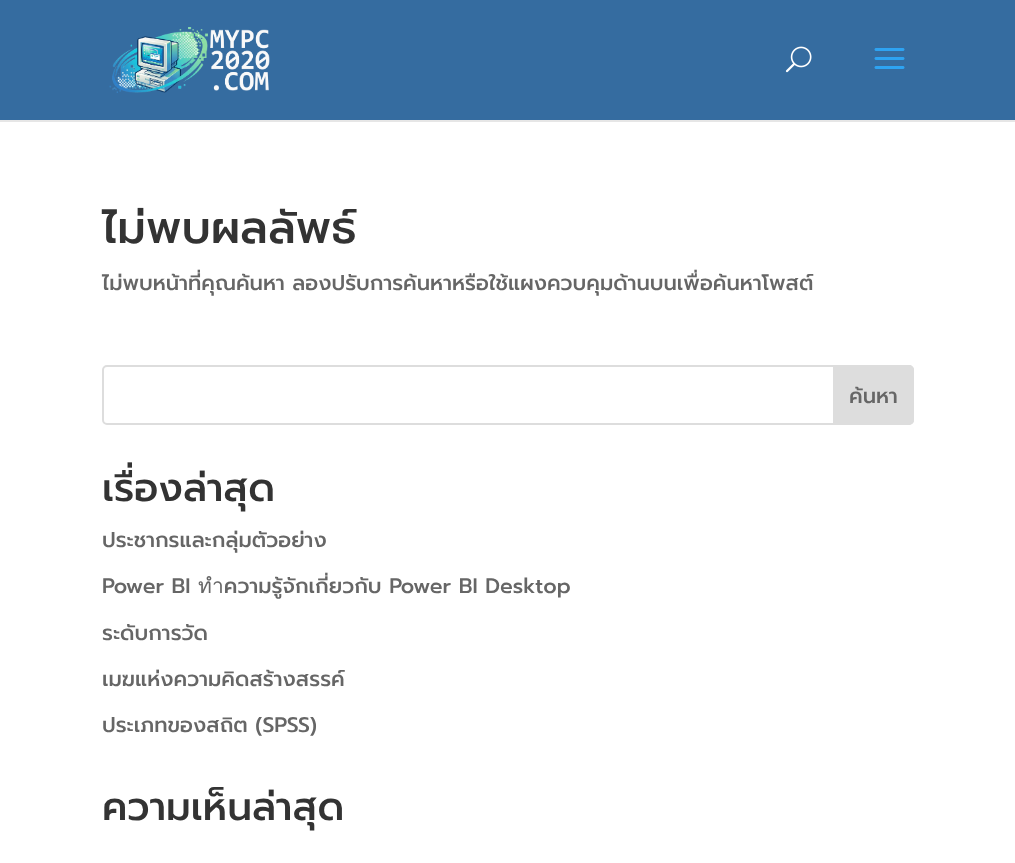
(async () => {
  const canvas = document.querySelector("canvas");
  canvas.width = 1015;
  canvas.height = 863;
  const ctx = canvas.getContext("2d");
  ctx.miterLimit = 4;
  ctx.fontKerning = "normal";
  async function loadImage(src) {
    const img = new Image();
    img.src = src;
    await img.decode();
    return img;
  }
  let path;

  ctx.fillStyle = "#ffffff";
  ctx.fillRect(0, 0, 1015, 863);
  ctx.fillStyle = "#e6e6e6";
  path = new Path2D("M0 120V122H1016V2V120Z");
  ctx.fill(path);
  ctx.fillStyle = "#356ca0";
  ctx.fillRect(0, 0, 1015, 120);
  ctx.drawImage(await loadImage("img/1.png"), 109, 27, 161, 66);
  ctx.drawImage(await loadImage("img/2.png"), 785, 46, 27, 27);
  ctx.drawImage(await loadImage("img/3.png"), 874, 48, 31, 21);
  ctx.beginPath();
  ctx.roundRect(103, 366, 810, 58, 4);
  ctx.strokeStyle = "#dddddd";
  ctx.lineWidth = 2;
  ctx.stroke();
  ctx.fillStyle = "#dddddd";
  ctx.beginPath();
  ctx.roundRect(834, 366, 79, 58, [0, 4, 4, 0]);
  ctx.fill();
  ctx.stroke();
  ctx.font = "500 45px Prompt";
  ctx.fillStyle = "#333333";
  ctx.fillText("ไม่พบผลลัพธ์", 102, 243);
  ctx.font = "500 21px Prompt";
  ctx.fillStyle = "#666666";
  ctx.fillText("ไม่พบหน้าที่คุณค้นหา ลองปรับการค้นหาหรือใช้แผงควบคุมด้านบนเพื่อค้นหาโพสต์", 102, 290);
  ctx.fillText("ค้นหา", 849, 403);
  ctx.font = "500 39px Prompt";
  ctx.fillStyle = "#333333";
  ctx.fillText("เรื่องล่าสุด", 102, 501);
  ctx.font = "500 21px Prompt";
  ctx.fillStyle = "#666666";
  for (const [text, x, y] of [
    ["ประชากรและกลุ่มตัวอย่าง", 102, 547],
    ["Power BI ทำความรู้จักเกี่ยวกับ Power BI Desktop", 102, 593],
    ["ระดับการวัด", 102, 640],
    ["เมฆแห่งความคิดสร้างสรรค์", 102, 686],
    ["ประเภทของสถิต (SPSS)", 102, 732],
  ]) {
    ctx.fillText(text, x, y);
  }
  ctx.font = "500 39px Prompt";
  ctx.fillStyle = "#333333";
  ctx.fillText("ความเห็นล่าสุด", 102, 820);
})();
